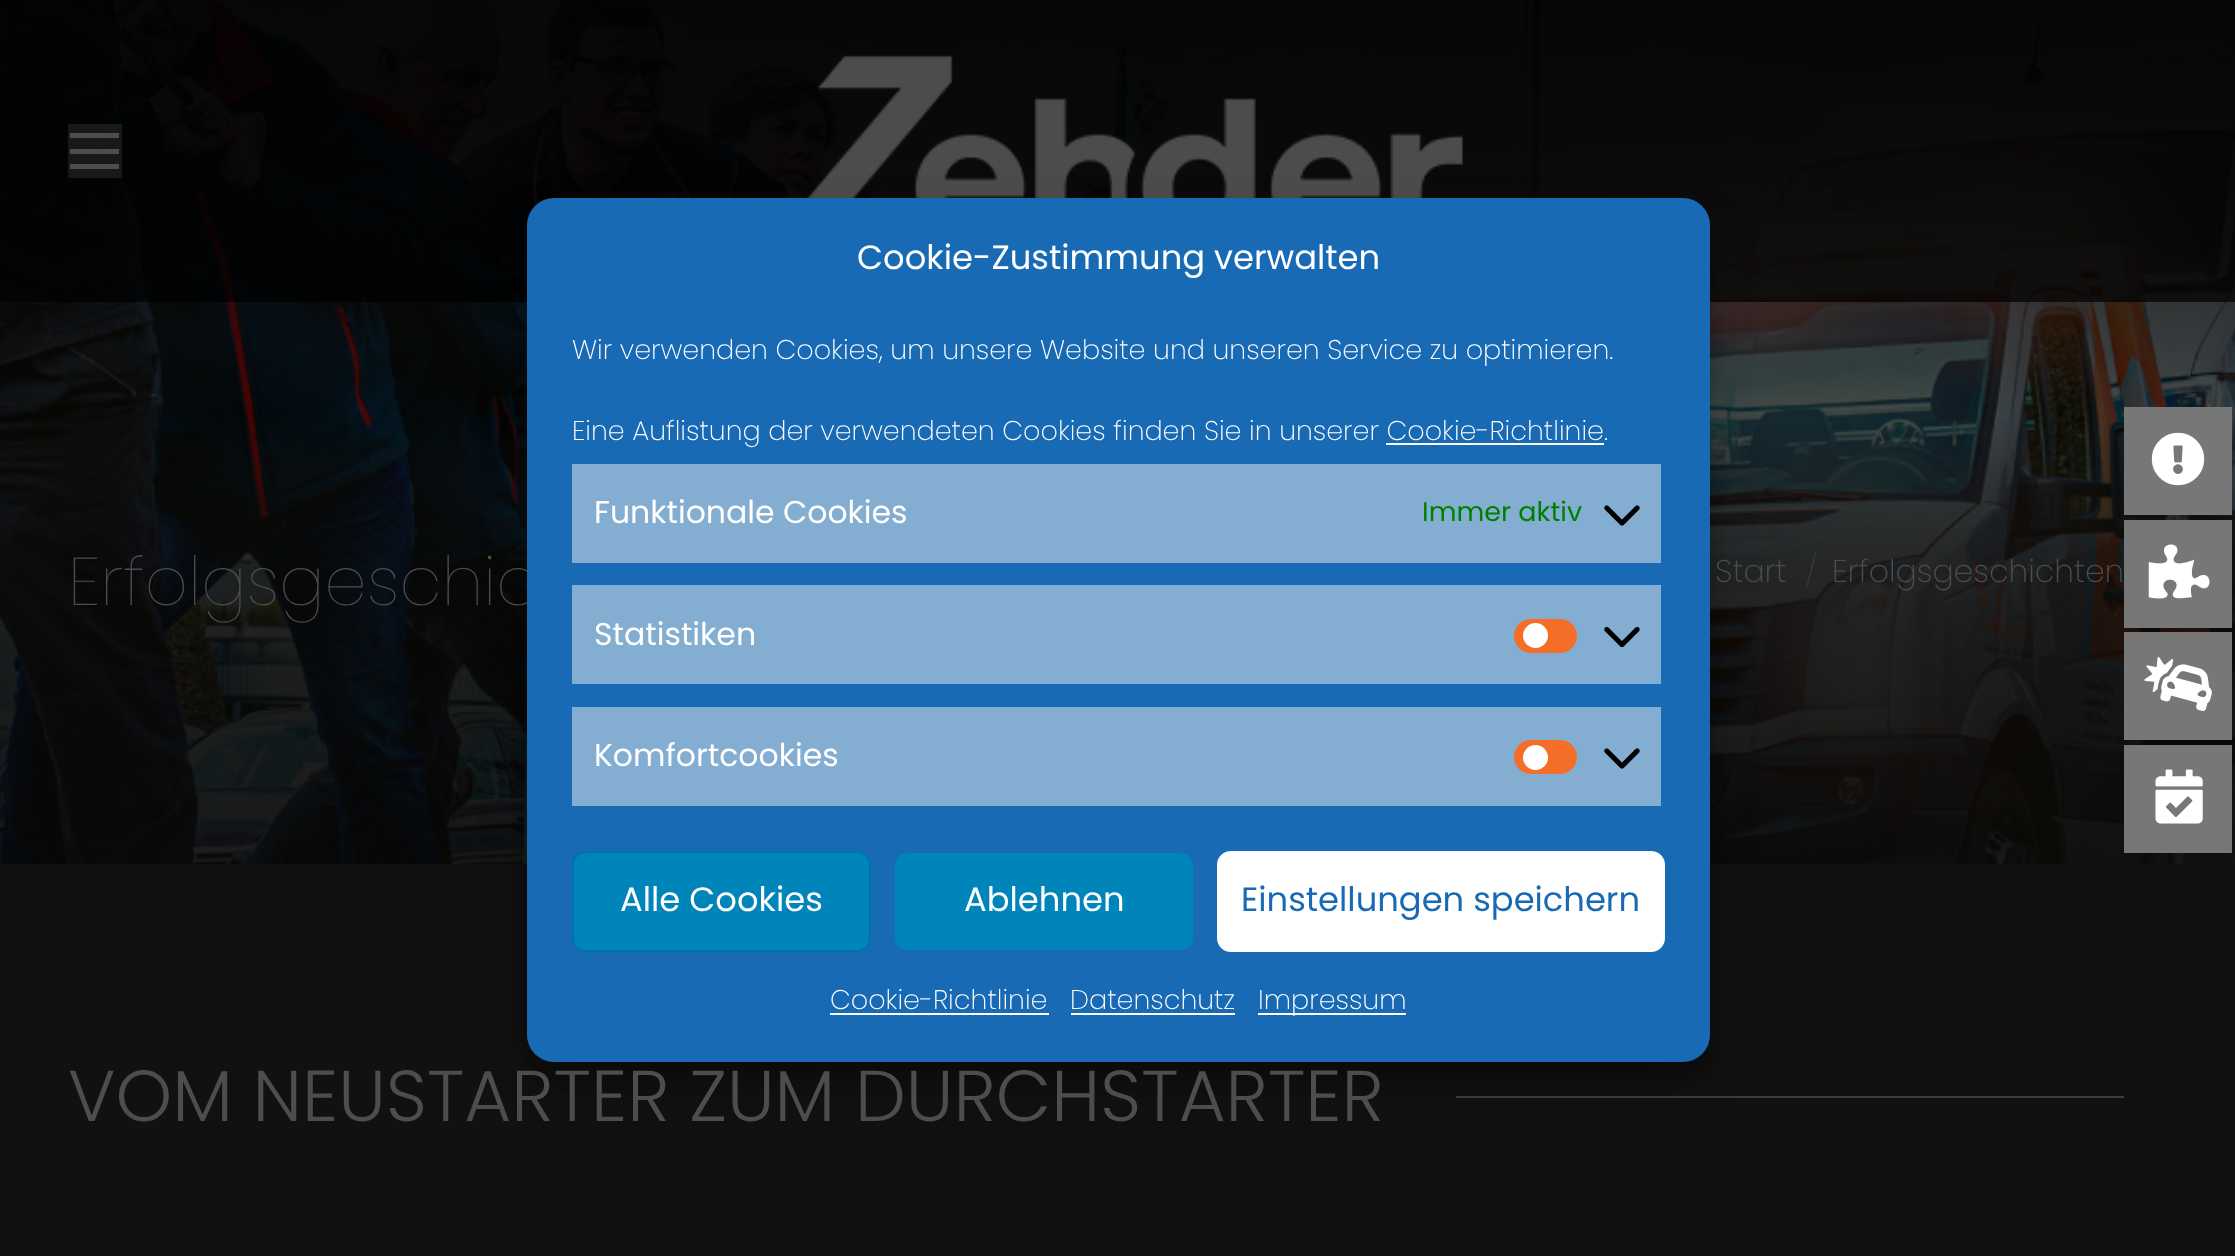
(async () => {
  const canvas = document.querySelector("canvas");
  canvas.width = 2235;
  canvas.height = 1256;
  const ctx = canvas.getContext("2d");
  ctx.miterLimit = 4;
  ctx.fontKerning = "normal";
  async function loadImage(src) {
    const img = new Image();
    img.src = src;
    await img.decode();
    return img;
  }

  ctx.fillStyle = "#111111";
  ctx.fillRect(0, 0, 2235, 1256);
  ctx.drawImage(await loadImage("img/8.png"), 0, 0, 2235, 864);
  ctx.fillStyle = "rgba(0, 0, 0, 0.7)";
  ctx.fillRect(0, 0, 2235, 302);
  ctx.drawImage(await loadImage("img/7.png"), 805, 55, 659, 143);
  ctx.fillStyle = "#3d3d3d";
  ctx.fillRect(1456, 1096, 668, 2);
  ctx.fillStyle = "rgba(0, 0, 0, 0.23)";
  ctx.filter = "blur(7px)";
  ctx.beginPath();
  ctx.roundRect(527, 212, 1183, 864, 27);
  ctx.fill();
  ctx.filter = "none";
  ctx.fillStyle = "rgba(0, 0, 0, 0.19)";
  ctx.filter = "blur(22.5px)";
  ctx.beginPath();
  ctx.roundRect(527, 221, 1183, 864, 27);
  ctx.fill();
  ctx.filter = "none";
  ctx.fillStyle = "#777777";
  ctx.fillRect(2124, 407, 108, 108);
  ctx.drawImage(await loadImage("img/3.png"), 2151, 432, 54, 54);
  ctx.fillRect(2124, 520, 108, 108);
  ctx.drawImage(await loadImage("img/4.png"), 2148, 544, 62, 55);
  ctx.fillRect(2124, 632, 108, 108);
  ctx.drawImage(await loadImage("img/5.png"), 2144, 657, 68, 54);
  ctx.fillRect(2124, 745, 108, 108);
  ctx.drawImage(await loadImage("img/6.png"), 2155, 769, 48, 55);
  for (const [x, y, w, h, color] of [
    [68, 124, 54, 54, "rgba(77, 77, 77, 0.3)"],
    [70, 133, 49, 5, "#4d4d4d"],
    [70, 149, 49, 5, "#4d4d4d"],
    [70, 164, 49, 5, "#4d4d4d"],
  ]) {
    ctx.fillStyle = color;
    ctx.fillRect(x, y, w, h);
  }
  ctx.font = "100 67.5px Poppins";
  ctx.fillText("Erfolgsgeschic", 68, 605);
  ctx.fillStyle = "#196ab4";
  ctx.beginPath();
  ctx.roundRect(527, 198, 1183, 864, 27);
  ctx.fill();
  ctx.fillStyle = "#84add2";
  ctx.fillRect(572, 707, 1089, 99);
  ctx.drawImage(await loadImage("img/1.png"), 1604, 748, 36, 21);
  ctx.fillStyle = "#f56e28";
  ctx.beginPath();
  ctx.roundRect(1514, 740, 63, 34, 17);
  ctx.fill();
  ctx.fillStyle = "#ffffff";
  ctx.beginPath();
  ctx.arc(1535.5, 757.5, 12.5, 0, Math.PI * 2);
  ctx.fill();
  ctx.fillStyle = "#84add2";
  ctx.fillRect(572, 585, 1089, 99);
  ctx.drawImage(await loadImage("img/2.png"), 1604, 626, 36, 22);
  ctx.fillStyle = "#f56e28";
  ctx.beginPath();
  ctx.roundRect(1514, 619, 63, 34, 17);
  ctx.fill();
  ctx.fillStyle = "#ffffff";
  ctx.beginPath();
  ctx.arc(1535.5, 635.5, 12.5, 0, Math.PI * 2);
  ctx.fill();
  ctx.fillStyle = "#84add2";
  ctx.fillRect(572, 464, 1089, 99);
  ctx.drawImage(await loadImage("img/1.png"), 1604, 505, 36, 21);
  ctx.font = "31.5px Poppins";
  ctx.fillStyle = "#ffffff";
  ctx.fillText("Komfortcookies", 594, 766);
  ctx.fillText("Statistiken", 594, 645);
  ctx.font = "27px Poppins";
  ctx.fillStyle = "#008000";
  ctx.fillText("Immer aktiv", 1422, 521);
  ctx.font = "31.5px Poppins";
  ctx.fillStyle = "#ffffff";
  ctx.fillText("Funktionale Cookies", 594, 523);
  ctx.fillRect(1386, 443, 218, 2);
  ctx.font = "200 27px Poppins";
  ctx.fillText("Eine Auflistung der verwendeten Cookies finden Sie in unserer Cookie-Richtlinie.", 572, 440);
  ctx.fillText("Wir verwenden Cookies, um unsere Website und unseren Service zu optimieren.", 572, 359);
  ctx.fillRect(1258, 1013, 148, 2);
  ctx.fillText("Impressum", 1258, 1009);
  ctx.fillText("Datenschutz", 1070, 1009);
  ctx.fillRect(1071, 1013, 164, 2);
  ctx.fillText("Cookie-Richtlinie", 830, 1009);
  ctx.fillRect(830, 1013, 219, 2);
  ctx.beginPath();
  ctx.roundRect(1218, 852, 446, 99, 13);
  ctx.fill();
  ctx.strokeStyle = "#ffffff";
  ctx.lineWidth = 2;
  ctx.stroke();
  ctx.font = "33.75px Poppins";
  ctx.fillStyle = "#196ab4";
  ctx.fillText("Einstellungen speichern", 1241, 911);
  ctx.fillStyle = "#0085ba";
  ctx.beginPath();
  ctx.roundRect(894, 852, 300, 99, 13);
  ctx.fill();
  ctx.strokeStyle = "#196ab4";
  ctx.stroke();
  ctx.fillStyle = "#ffffff";
  ctx.fillText("Ablehnen", 964, 911);
  ctx.fillStyle = "#0085ba";
  ctx.beginPath();
  ctx.roundRect(573, 852, 297, 99, 13);
  ctx.fill();
  ctx.strokeStyle = "#0073aa";
  ctx.stroke();
  ctx.fillStyle = "#ffffff";
  ctx.fillText("Alle Cookies", 620, 911);
  ctx.fillText("Cookie-Zustimmung verwalten", 857, 269);
  ctx.font = "200 31.5px Poppins";
  ctx.fillStyle = "#4d4d4d";
  ctx.fillText("Start", 1715, 582);
  ctx.fillStyle = "#393939";
  ctx.fillText("/", 1805, 582);
  ctx.fillStyle = "#4d4d4d";
  ctx.fillText("Erfolgsgeschichten", 1832, 582);
  ctx.font = "300 72px Poppins";
  ctx.fillText("VOM NEUSTARTER ZUM DURCHSTARTER", 68, 1121);
})();
